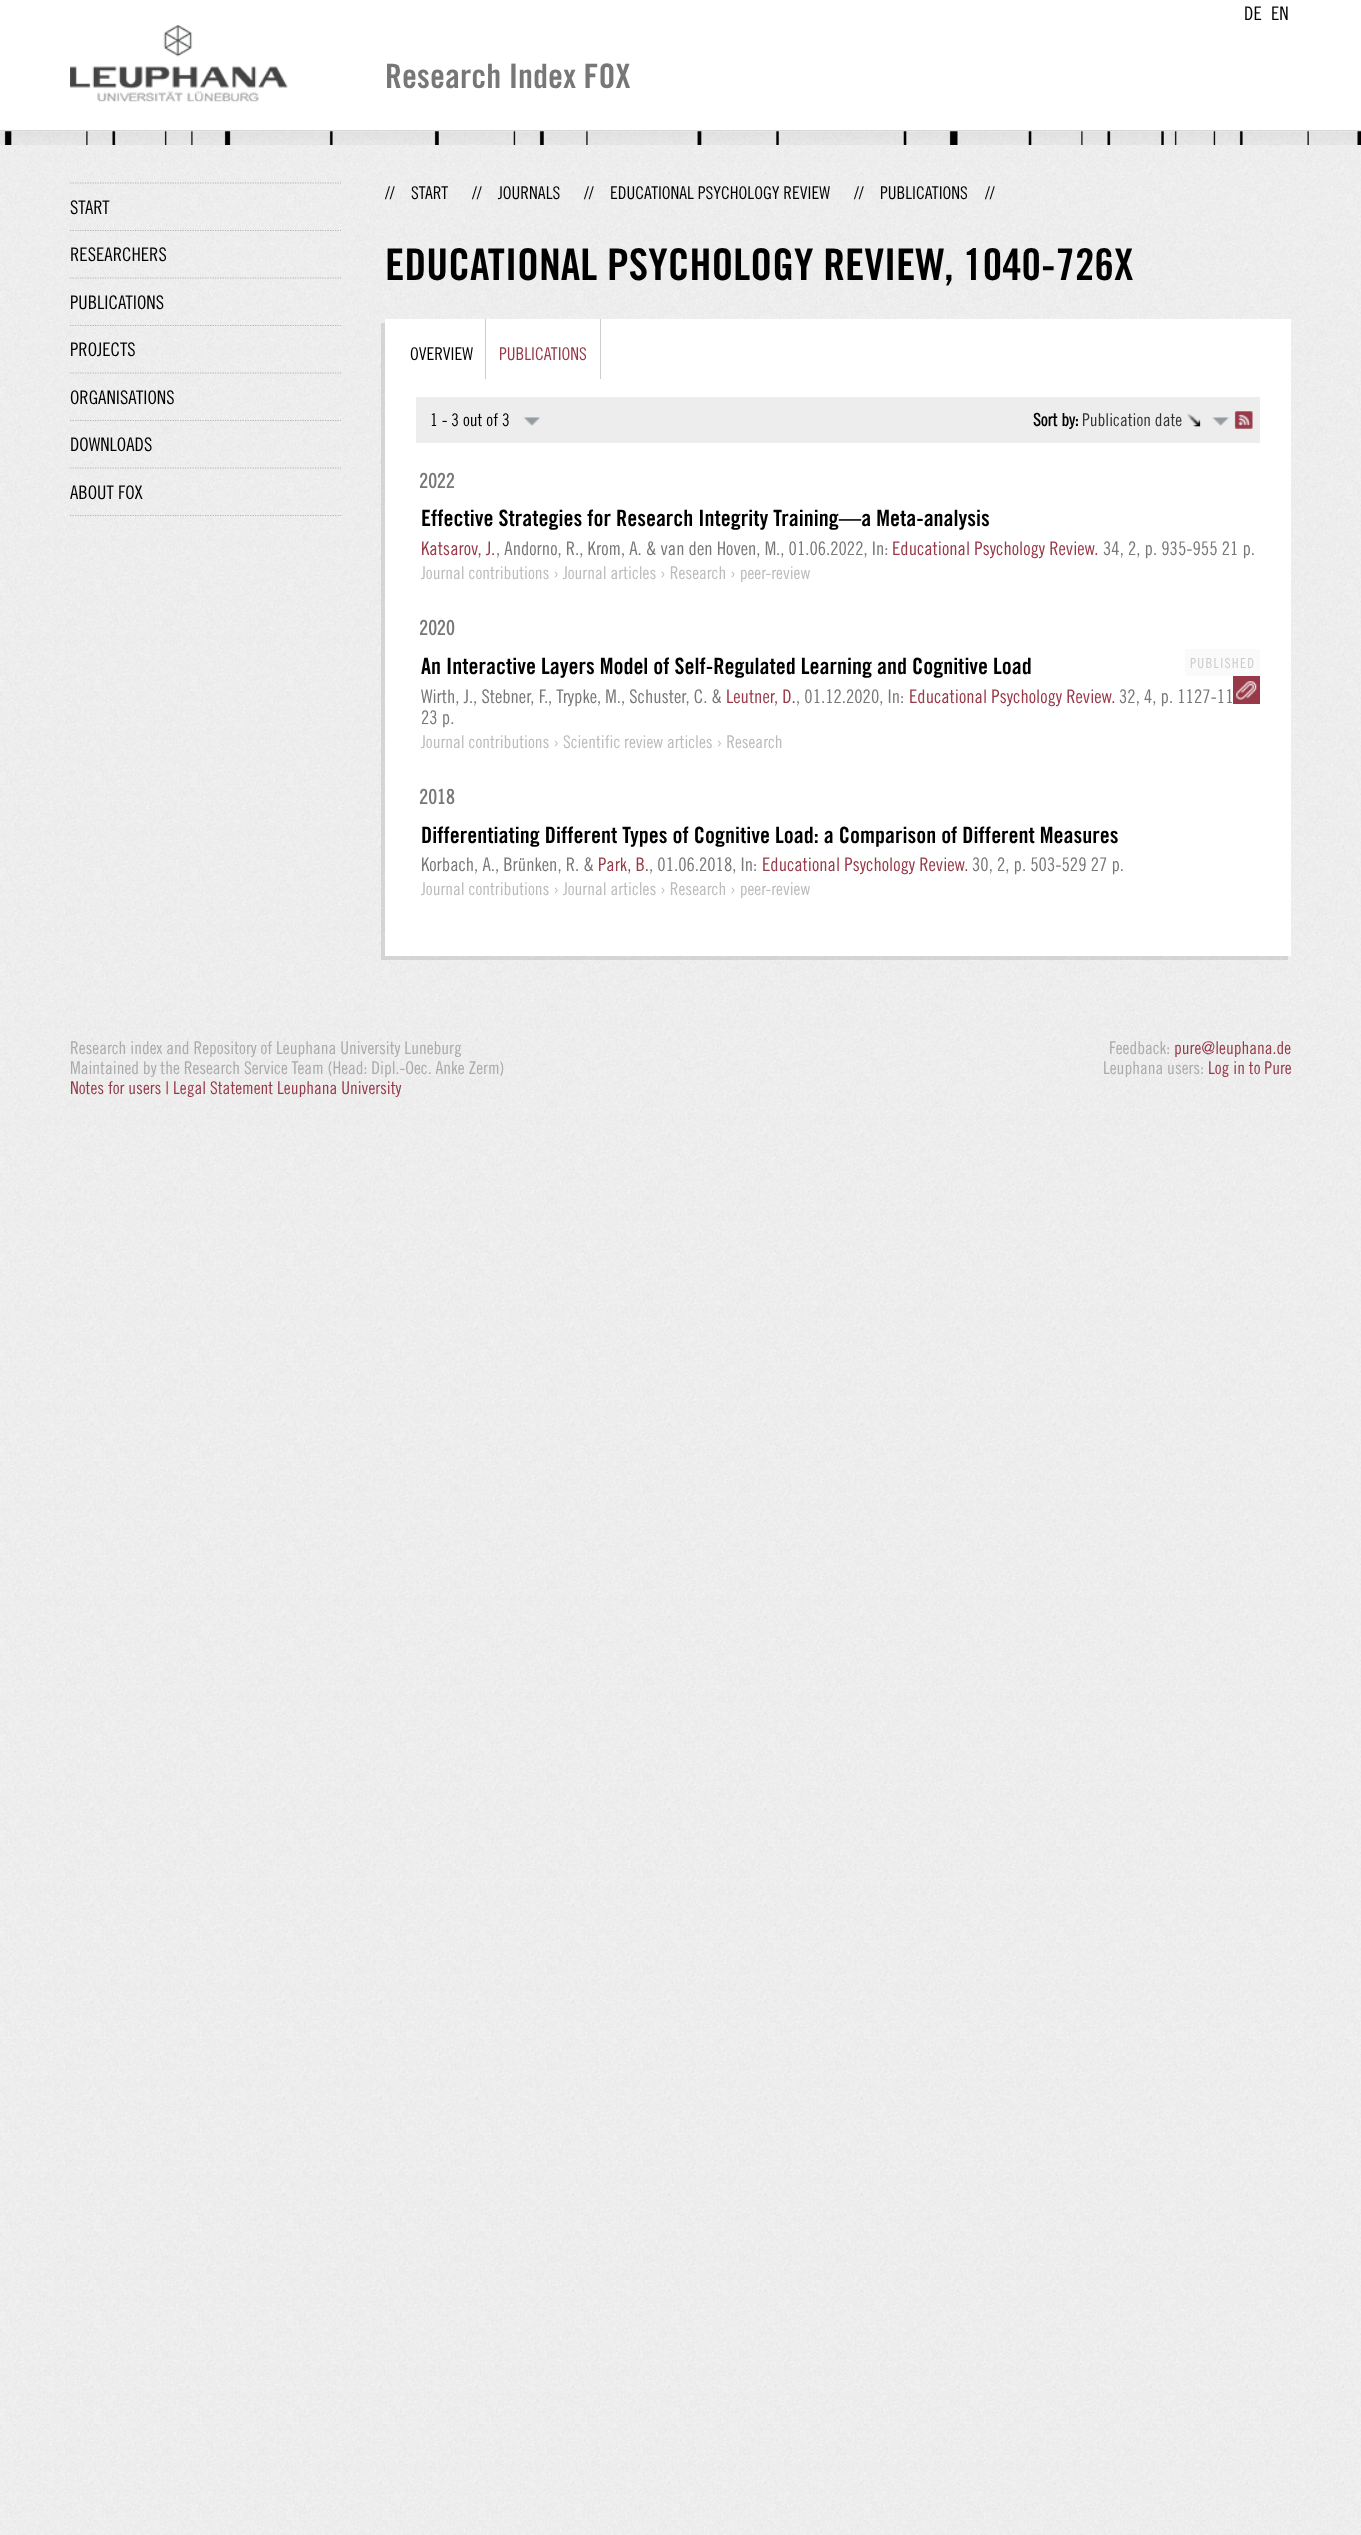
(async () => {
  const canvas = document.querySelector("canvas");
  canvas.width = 1361;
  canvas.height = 2535;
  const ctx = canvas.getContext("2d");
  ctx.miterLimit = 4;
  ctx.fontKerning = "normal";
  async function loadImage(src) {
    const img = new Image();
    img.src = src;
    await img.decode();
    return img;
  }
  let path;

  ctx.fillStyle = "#ffffff";
  ctx.fillRect(0, 0, 1361, 2535);
  ctx.drawImage(await loadImage("img/1.png"), 0, 145, 1361, 2390);
  ctx.fillStyle = "#d6d6d6";
  ctx.fillRect(0, 130, 1361, 1);
  ctx.drawImage(await loadImage("img/2.png"), 70, 25, 218, 77);
  ctx.drawImage(await loadImage("img/3.png"), 0, 131, 1361, 14);
  path = new Path2D("M70 515.5H341");
  ctx.strokeStyle = "#b5b5b5";
  ctx.lineWidth = 1.2;
  ctx.setLineDash([1.25, 1.25]);
  ctx.stroke(path);
  path = new Path2D("M70 183H341");
  ctx.stroke(path);
  path = new Path2D("M70 230.5H341");
  ctx.stroke(path);
  path = new Path2D("M70 278H341");
  ctx.stroke(path);
  path = new Path2D("M70 325.5H341");
  ctx.stroke(path);
  path = new Path2D("M70 373H341");
  ctx.stroke(path);
  path = new Path2D("M70 420.5H341");
  ctx.stroke(path);
  path = new Path2D("M70 468H341");
  ctx.stroke(path);
  ctx.fillStyle = "rgba(0, 0, 0, 0.1)";
  path = new Path2D("M381 323V960H1288V956H385V323Z");
  ctx.fill(path);
  for (const [x, y, w, h, color] of [
    [385, 319, 906, 637, "#ffffff"],
    [485, 319, 1, 60, "#cdcdcd"],
    [600, 319, 1, 60, "#cdcdcd"],
    [416, 397, 844, 46, "#ededed"],
  ]) {
    ctx.fillStyle = color;
    ctx.fillRect(x, y, w, h);
  }
  ctx.drawImage(await loadImage("img/4.png"), 523, 417, 17, 9);
  ctx.drawImage(await loadImage("img/5.png"), 1212, 417, 17, 9);
  ctx.drawImage(await loadImage("img/6.png"), 1187, 413, 14, 14);
  ctx.drawImage(await loadImage("img/7.png"), 1234, 411, 19, 18);
  ctx.fillStyle = "#fafafa";
  ctx.fillRect(1185, 649, 75, 27);
  ctx.fillStyle = "#973948";
  ctx.fillRect(1233, 676, 27, 28);
  ctx.drawImage(await loadImage("img/8.png"), 1236, 681, 21, 19);
  ctx.font = "18.75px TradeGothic";
  ctx.fillStyle = "#000000";
  ctx.fillText("DE", 1244, 20);
  ctx.fillText("EN", 1271, 20);
  ctx.font = "bold 33.75px 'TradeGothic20'";
  ctx.fillStyle = "#777777";
  ctx.fillText("Research Index FOX", 385, 88);
  ctx.font = "18.75px TradeGothic";
  ctx.fillStyle = "#000000";
  for (const [text, x, y] of [
    ["START", 70, 214],
    ["RESEARCHERS", 70, 261],
    ["PUBLICATIONS", 70, 309],
    ["PROJECTS", 70, 356],
    ["ORGANISATIONS", 70, 404],
    ["DOWNLOADS", 70, 451],
    ["ABOUT FOX", 70, 499],
  ]) {
    ctx.fillText(text, x, y);
  }
  ctx.font = "17.5px TradeGothic";
  for (const [text, x, y] of [
    ["//", 385, 199],
    ["START", 411, 199],
    ["//", 472, 199],
    ["JOURNALS", 498, 199],
    ["//", 584, 199],
    ["EDUCATIONAL PSYCHOLOGY REVIEW", 610, 199],
    ["//", 854, 199],
    ["PUBLICATIONS", 880, 199],
    ["//", 985, 199],
  ]) {
    ctx.fillText(text, x, y);
  }
  ctx.font = "bold 43.75px 'TradeGothic20'";
  ctx.fillText("EDUCATIONAL PSYCHOLOGY REVIEW, 1040-726X", 385, 280);
  ctx.font = "17.5px TradeGothic";
  ctx.fillText("OVERVIEW", 410, 360);
  ctx.fillStyle = "#973948";
  ctx.fillText("PUBLICATIONS", 499, 360);
  ctx.fillStyle = "#000000";
  ctx.fillText("1 - 3 out of 3", 430, 426);
  ctx.font = "bold 17.5px TradeGothic";
  ctx.fillText("Sort by:", 1033, 426);
  ctx.font = "17.5px TradeGothic";
  ctx.fillStyle = "#333333";
  ctx.fillText("Publication date", 1082, 426);
  ctx.font = "bold 20px TradeGothic";
  ctx.fillStyle = "#777777";
  ctx.fillText("2022", 419, 488);
  ctx.font = "bold 22.5px 'TradeGothic20'";
  ctx.fillStyle = "#000000";
  ctx.fillText("Effective Strategies for Research Integrity Training—a Meta-analysis", 421, 526);
  ctx.font = "18.75px TradeGothic";
  ctx.fillStyle = "#973948";
  ctx.fillText("Katsarov, J.", 421, 555);
  ctx.fillStyle = "#777777";
  ctx.fillText(", Andorno, R., Krom, A. & van den Hoven, M., 01.06.2022, In:", 496, 555);
  ctx.fillStyle = "#973948";
  ctx.fillText("Educational Psychology Review.", 892, 555);
  ctx.fillStyle = "#777777";
  ctx.fillText("34, 2, p. 935-955 21 p.", 1103, 555);
  ctx.font = "17.5px TradeGothic";
  ctx.fillStyle = "#bbbbbb";
  ctx.fillText("Journal contributions › Journal articles › Research › peer-review", 421, 579);
  ctx.font = "bold 20px TradeGothic";
  ctx.fillStyle = "#777777";
  ctx.fillText("2020", 419, 635);
  ctx.font = "bold 22.5px 'TradeGothic20'";
  ctx.fillStyle = "#000000";
  ctx.fillText("An Interactive Layers Model of Self-Regulated Learning and Cognitive Load", 421, 674);
  ctx.font = "18.75px TradeGothic";
  ctx.fillStyle = "#777777";
  ctx.fillText("Wirth, J., Stebner, F., Trypke, M., Schuster, C. &", 421, 703);
  ctx.fillStyle = "#973948";
  ctx.fillText("Leutner, D.", 726, 703);
  ctx.fillStyle = "#777777";
  ctx.fillText(", 01.12.2020, In:", 796, 703);
  ctx.fillStyle = "#973948";
  ctx.fillText("Educational Psychology Review.", 909, 703);
  ctx.fillStyle = "#777777";
  ctx.fillText("32, 4, p. 1127-11", 1119, 703);
  ctx.fillText("23 p.", 421, 724);
  ctx.font = "17.5px TradeGothic";
  ctx.fillStyle = "#bbbbbb";
  ctx.fillText("Journal contributions › Scientific review articles › Research", 421, 748);
  ctx.letterSpacing = "1.25px";
  ctx.font = "13.75px TradeGothic";
  ctx.fillStyle = "#cccccc";
  ctx.fillText("PUBLISHED", 1190, 668);
  ctx.letterSpacing = "0px";
  ctx.font = "bold 20px TradeGothic";
  ctx.fillStyle = "#777777";
  ctx.fillText("2018", 419, 804);
  ctx.font = "bold 22.5px 'TradeGothic20'";
  ctx.fillStyle = "#000000";
  ctx.fillText("Differentiating Different Types of Cognitive Load: a Comparison of Different Measures", 421, 843);
  ctx.font = "18.75px TradeGothic";
  ctx.fillStyle = "#777777";
  ctx.fillText("Korbach, A., Brünken, R. &", 421, 871);
  ctx.fillStyle = "#973948";
  ctx.fillText("Park, B.", 598, 871);
  ctx.fillStyle = "#777777";
  ctx.fillText(", 01.06.2018, In:", 649, 871);
  ctx.fillStyle = "#973948";
  ctx.fillText("Educational Psychology Review.", 762, 871);
  ctx.fillStyle = "#777777";
  ctx.fillText("30, 2, p. 503-529 27 p.", 972, 871);
  ctx.font = "17.5px TradeGothic";
  ctx.fillStyle = "#bbbbbb";
  ctx.fillText("Journal contributions › Journal articles › Research › peer-review", 421, 895);
  ctx.fillStyle = "#aaaaaa";
  ctx.fillText("Research index and Repository of Leuphana University Luneburg", 70, 1054);
  ctx.fillText("Maintained by the Research Service Team (Head: Dipl.-Oec. Anke Zerm)", 70, 1074);
  ctx.fillStyle = "#973948";
  ctx.fillText("Notes for users | Legal Statement Leuphana University", 70, 1094);
  ctx.fillStyle = "#aaaaaa";
  ctx.fillText("Feedback:", 1109, 1054);
  ctx.fillStyle = "#973948";
  ctx.fillText("pure@leuphana.de", 1174, 1054);
  ctx.fillStyle = "#aaaaaa";
  ctx.fillText("Leuphana users:", 1103, 1074);
  ctx.fillStyle = "#973948";
  ctx.fillText("Log in to Pure", 1208, 1074);
})();
